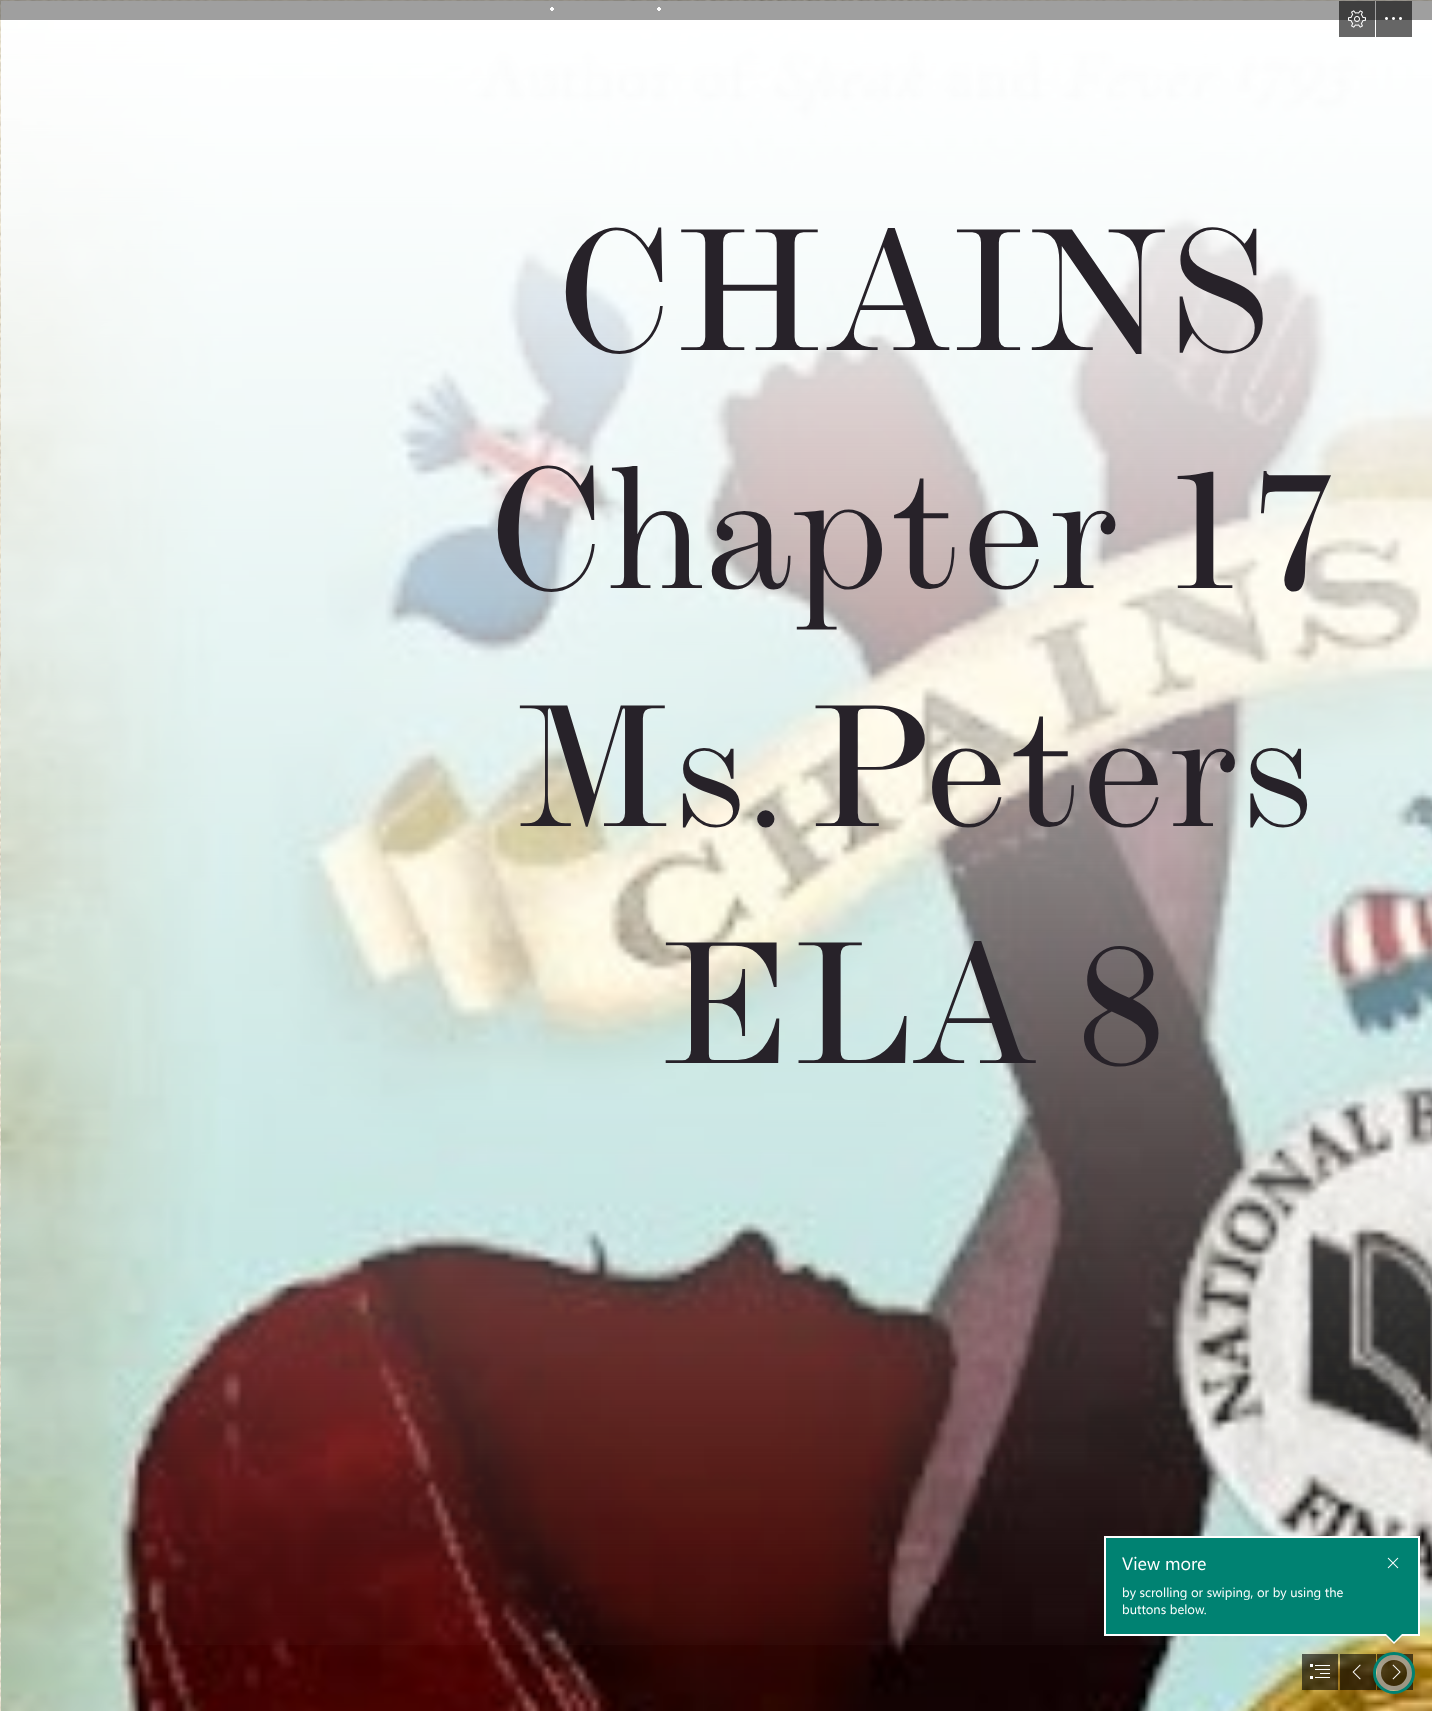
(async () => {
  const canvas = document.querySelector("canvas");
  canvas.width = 1432;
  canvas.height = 1711;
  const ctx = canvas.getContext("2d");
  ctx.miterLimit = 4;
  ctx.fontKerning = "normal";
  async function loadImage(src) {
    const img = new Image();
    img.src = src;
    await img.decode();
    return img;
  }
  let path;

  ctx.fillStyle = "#ffffff";
  ctx.fillRect(0, 0, 1432, 1711);
  ctx.drawImage(await loadImage("img/4.png"), 0, 0, 1432, 1711);
  ctx.drawImage(await loadImage("img/6.png"), 1, 16, 1431, 1695);
  ctx.drawImage(await loadImage("img/5.png"), 1, 1, 1431, 1644);
  ctx.fillStyle = "rgba(64, 64, 64, 0.5)";
  ctx.fillRect(0, 0, 1432, 20);
  ctx.fillStyle = "rgba(0, 0, 0, 0.6)";
  ctx.fillRect(1339, 1, 36, 36);
  ctx.drawImage(await loadImage("img/1.png"), 1348, 10, 18, 18);
  ctx.fillRect(1376, 1, 36, 36);
  ctx.drawImage(await loadImage("img/2.png"), 1385, 17, 17, 3);
  ctx.drawImage(await loadImage("img/3.png"), 550, 7, 111, 4);
  ctx.fillStyle = "#008272";
  ctx.beginPath();
  ctx.rect(1105, 1537, 314, 98);
  ctx.fill();
  ctx.strokeStyle = "#ffffff";
  ctx.lineWidth = 2;
  ctx.stroke();
  ctx.drawImage(await loadImage("img/7.png"), 1387, 1557, 12, 12);
  ctx.fillStyle = "#ffffff";
  path = new Path2D("M1384 1634H1404L1394 1644Z");
  ctx.fill(path);
  ctx.fillStyle = "#008272";
  path = new Path2D("M1386 1634H1402L1394 1642Z");
  ctx.fill(path);
  ctx.fillStyle = "rgba(0, 0, 0, 0.6)";
  ctx.fillRect(1340, 1654, 36, 36);
  ctx.fillRect(1377, 1654, 36, 36);
  ctx.drawImage(await loadImage("img/10.png"), 1392, 1664, 9, 16);
  ctx.beginPath();
  ctx.arc(1394, 1673, 16.5, 0, Math.PI * 2);
  ctx.strokeStyle = "rgba(255, 255, 255, 0.5)";
  ctx.lineWidth = 7;
  ctx.stroke();
  ctx.beginPath();
  ctx.arc(1394, 1673, 19.5, 0, Math.PI * 2);
  ctx.strokeStyle = "#008272";
  ctx.lineWidth = 3;
  ctx.stroke();
  ctx.fillRect(1302, 1654, 36, 36);
  ctx.drawImage(await loadImage("img/8.png"), 1310, 1664, 20, 15);
  ctx.drawImage(await loadImage("img/9.png"), 1352, 1664, 9, 16);
  ctx.font = "178.25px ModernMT";
  ctx.fillStyle = "#272229";
  for (const [text, x, y] of [
    ["CHAINS", 556, 350],
    ["Chapter 17", 488, 588],
    ["Ms. Peters", 514, 826],
    ["ELA 8", 660, 1063],
  ]) {
    ctx.fillText(text, x, y);
  }
  ctx.font = "18px Segoe UI";
  ctx.fillStyle = "#ffffff";
  ctx.fillText("View more", 1122, 1570);
  ctx.font = "13px Segoe UI";
  ctx.fillText("by scrolling or swiping, or by using the", 1122, 1597);
  ctx.fillText("buttons below.", 1122, 1614);
})();
